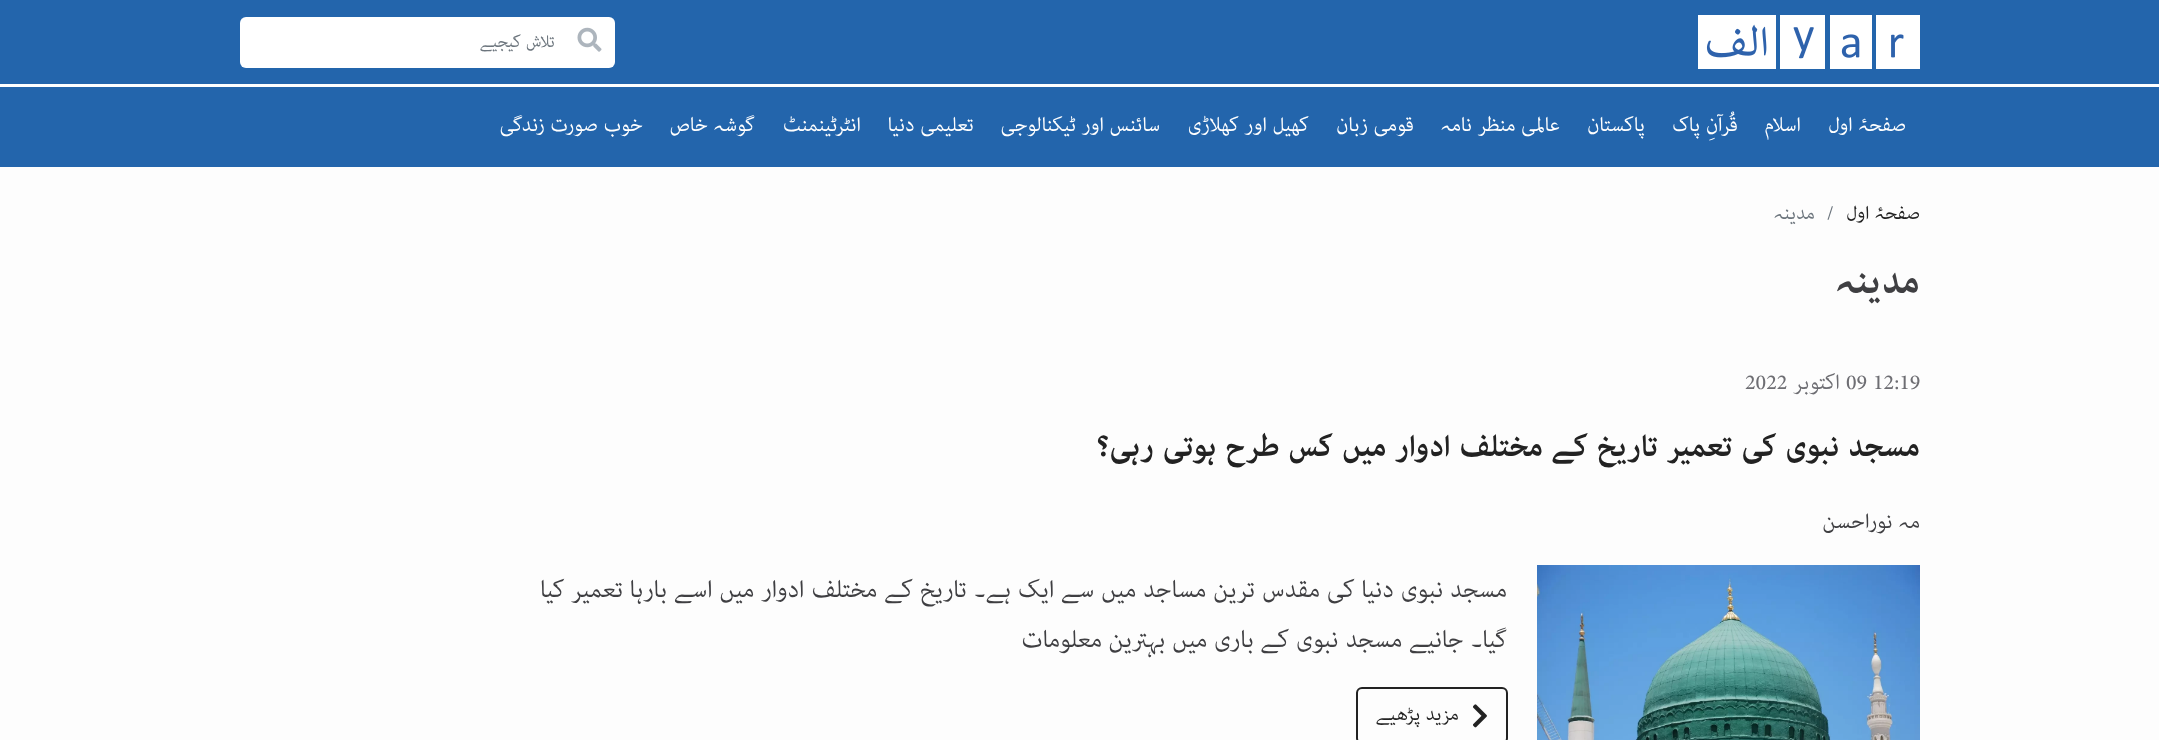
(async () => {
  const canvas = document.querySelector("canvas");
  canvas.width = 2159;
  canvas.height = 740;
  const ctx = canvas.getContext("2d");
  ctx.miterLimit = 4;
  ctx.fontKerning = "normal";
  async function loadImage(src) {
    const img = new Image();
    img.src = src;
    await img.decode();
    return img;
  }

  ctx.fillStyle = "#fdfdfd";
  ctx.fillRect(0, 0, 2159, 740);
  ctx.fillStyle = "#2365ac";
  ctx.fillRect(0, 0, 2159, 167);
  ctx.drawImage(await loadImage("img/1.png"), 1698, 15, 222, 54);
  ctx.fillStyle = "#ffffff";
  ctx.beginPath();
  ctx.roundRect(240, 17, 375, 51, 6);
  ctx.fill();
  ctx.drawImage(await loadImage("img/2.png"), 577, 27, 25, 25);
  ctx.fillRect(0, 84, 2159, 3);
  ctx.drawImage(await loadImage("img/3.png"), 1537, 565, 383, 175);
  ctx.beginPath();
  ctx.roundRect(1357, 688, 150, 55, 5);
  ctx.strokeStyle = "#222222";
  ctx.lineWidth = 2;
  ctx.stroke();
  ctx.drawImage(await loadImage("img/4.png"), 1473, 704, 14, 24);
  ctx.direction = "rtl";
  ctx.font = "24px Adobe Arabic";
  ctx.fillStyle = "#6c757d";
  ctx.fillText("تلاش کیجیے", 555, 47);
  ctx.font = "28.5px Adobe Arabic";
  ctx.fillStyle = "#ffffff";
  for (const [text, x, y] of [
    ["صفحۂ اول", 1906, 131],
    ["اسلام", 1801, 131],
    ["قُرآنِ پاک", 1738, 131],
    ["پاکستان", 1645, 131],
    ["عالمی منظر نامہ", 1560, 131],
    ["قومی زبان", 1414, 131],
    ["کھیل اور کھلاڑی", 1309, 131],
    ["سائنس اور ٹیکنالوجی", 1160, 131],
    ["تعلیمی دنیا", 974, 131],
    ["انٹرٹینمنٹ", 861, 131],
    ["گوشہ خاص", 755, 131],
    ["خوب صورت زندگی", 643, 131],
  ]) {
    ctx.fillText(text, x, y);
  }
  ctx.font = "27px Adobe Arabic";
  ctx.fillStyle = "#222222";
  ctx.fillText("صفحۂ اول", 1920, 219);
  ctx.direction = "ltr";
  ctx.fillStyle = "#6c757d";
  ctx.fillText("/", 1827, 219);
  ctx.direction = "rtl";
  ctx.fillText("مدینہ", 1815, 219);
  ctx.font = "bold 54px Adobe Arabic";
  ctx.fillStyle = "#3f3f42";
  ctx.fillText("مدینہ", 1920, 293);
  ctx.direction = "ltr";
  ctx.font = "30px Adobe Arabic";
  ctx.fillStyle = "#6e6e73";
  ctx.fillText("09 12:19", 1846, 389);
  ctx.direction = "rtl";
  ctx.fillText("اکتوبر", 1840, 389);
  ctx.direction = "ltr";
  ctx.fillText("2022", 1745, 389);
  ctx.direction = "rtl";
  ctx.font = "bold 43.5px Adobe Arabic";
  ctx.fillStyle = "#222222";
  ctx.fillText("مسجد نبوی کی تعمیر تاریخ کے مختلف ادوار میں کس طرح ہوتی رہی؟", 1920, 456);
  ctx.font = "30px Adobe Arabic";
  ctx.fillStyle = "#3f3f42";
  ctx.fillText("مہ نوراحسن", 1920, 528);
  ctx.font = "34.5px Adobe Arabic";
  for (const [text, x, y] of [
    ["مسجد نبوی دنیا کی مقدس ترین مساجد میں سے ایک ہے۔ تاریخ کے مختلف ادوار میں اسے بارہا تعمیر کیا", 1507, 597],
    ["گیا۔ جانیے مسجد نبوی کے باری میں بہترین", 1507, 647],
    ["معلومات", 1102, 647],
  ]) {
    ctx.fillText(text, x, y);
  }
  ctx.font = "27px Adobe Arabic";
  ctx.fillStyle = "#222222";
  ctx.fillText("مزید پڑھیے", 1459, 720);
})();
